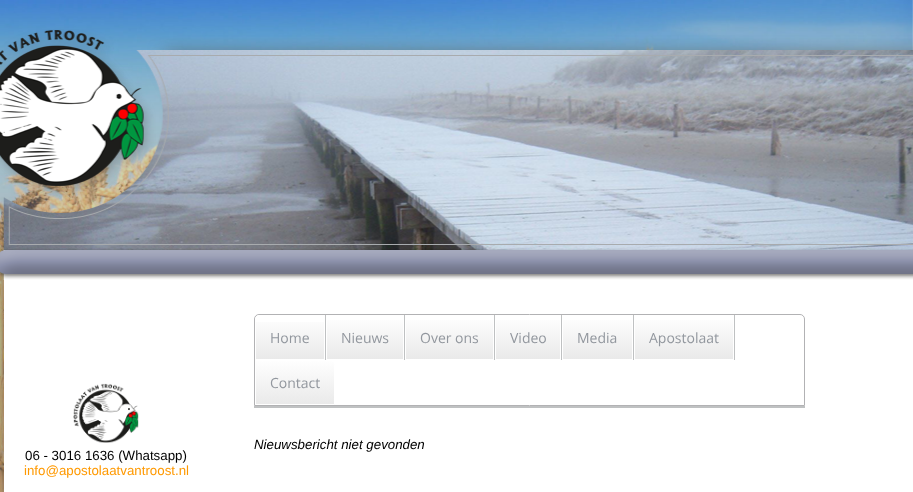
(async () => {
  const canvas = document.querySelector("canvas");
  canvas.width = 913;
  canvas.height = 492;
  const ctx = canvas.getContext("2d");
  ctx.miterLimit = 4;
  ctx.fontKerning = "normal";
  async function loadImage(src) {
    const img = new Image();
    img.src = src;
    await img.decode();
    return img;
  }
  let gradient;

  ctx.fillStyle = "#ffffff";
  ctx.fillRect(0, 0, 913, 492);
  ctx.drawImage(await loadImage("img/1.png"), 0, 0, 913, 492);
  ctx.drawImage(await loadImage("img/2.png"), 0, 29, 913, 251);
  ctx.drawImage(await loadImage("img/3.png"), 0, 280, 4, 212);
  ctx.fillRect(4, 280, 909, 212);
  ctx.fillStyle = "#bfc1c2";
  ctx.fillRect(254, 406, 551, 2);
  ctx.beginPath();
  ctx.roundRect(254.5, 314.5, 550, 91, [4.5, 4.5, 0, 0]);
  ctx.strokeStyle = "#b2b2b4";
  ctx.stroke();
  ctx.fillStyle = "#ffffff";
  ctx.beginPath();
  ctx.roundRect(255, 315, 70, 45, [5, 0, 0, 0]);
  ctx.fill();
  gradient = ctx.createLinearGradient(290, 315, 290, 360);
  gradient.addColorStop(0, "rgba(85, 85, 85, 0)");
  gradient.addColorStop(1, "rgba(85, 85, 85, 0.13)");
  ctx.fillStyle = gradient;
  ctx.fillRect(256, 322, 68, 37);
  ctx.beginPath();
  ctx.roundRect(255.5, 315.5, 69, 44, [4.5, 0, 0, 0]);
  ctx.strokeStyle = "#ffffff";
  ctx.stroke();
  ctx.fillStyle = "#bfc1c2";
  ctx.fillRect(325, 315, 1, 45);
  gradient = ctx.createLinearGradient(365, 315, 365, 360);
  gradient.addColorStop(0, "#ffffff");
  gradient.addColorStop(1, "#e9e9e9");
  ctx.fillStyle = gradient;
  ctx.fillRect(327, 320, 76, 39);
  ctx.fillStyle = "#bfc1c2";
  ctx.fillRect(404, 315, 1, 45);
  gradient = ctx.createLinearGradient(450, 315, 450, 360);
  gradient.addColorStop(0, "#ffffff");
  gradient.addColorStop(1, "#e9e9e9");
  ctx.fillStyle = gradient;
  ctx.fillRect(406, 320, 87, 39);
  ctx.fillStyle = "#bfc1c2";
  ctx.fillRect(494, 315, 1, 45);
  gradient = ctx.createLinearGradient(528, 315, 528, 360);
  gradient.addColorStop(0, "#ffffff");
  gradient.addColorStop(1, "#e9e9e9");
  ctx.fillStyle = gradient;
  ctx.fillRect(496, 320, 64, 39);
  ctx.fillStyle = "#bfc1c2";
  ctx.fillRect(561, 315, 1, 45);
  gradient = ctx.createLinearGradient(598, 315, 598, 360);
  gradient.addColorStop(0, "#ffffff");
  gradient.addColorStop(1, "#e9e9e9");
  ctx.fillStyle = gradient;
  ctx.fillRect(563, 320, 69, 39);
  ctx.fillStyle = "#bfc1c2";
  ctx.fillRect(633, 315, 1, 45);
  gradient = ctx.createLinearGradient(684, 315, 684, 360);
  gradient.addColorStop(0, "#ffffff");
  gradient.addColorStop(1, "#e9e9e9");
  ctx.fillStyle = gradient;
  ctx.fillRect(635, 320, 98, 39);
  ctx.fillStyle = "#bfc1c2";
  ctx.fillRect(734, 315, 1, 45);
  gradient = ctx.createLinearGradient(295, 360, 295, 405);
  gradient.addColorStop(0, "#ffffff");
  gradient.addColorStop(1, "#e9e9e9");
  ctx.fillStyle = gradient;
  ctx.beginPath();
  ctx.roundRect(255.5, 360.5, 79, 44, [0, 4.5, 0, 0]);
  ctx.fill();
  ctx.stroke();
  ctx.drawImage(await loadImage("img/4.png"), 73, 383, 66, 60);
  ctx.font = "14px Open Sans";
  ctx.fillStyle = "#92979e";
  for (const [text, x, y] of [
    ["Home", 270, 343],
    ["Nieuws", 341, 343],
    ["Over ons", 420, 343],
    ["Video", 510, 343],
    ["Media", 577, 343],
    ["Apostolaat", 649, 343],
    ["Contact", 270, 388],
  ]) {
    ctx.fillText(text, x, y);
  }
  ctx.font = "italic 13.3px Liberation Sans";
  ctx.fillStyle = "#000000";
  ctx.fillText("Nieuwsbericht niet gevonden", 254, 449);
  ctx.font = "13.3px Liberation Sans";
  ctx.fillText("06 - 3016 1636 (Whatsapp)", 25, 460);
  ctx.fillStyle = "#ff9900";
  ctx.fillText("info@apostolaatvantroost.nl", 24, 475);
})();
